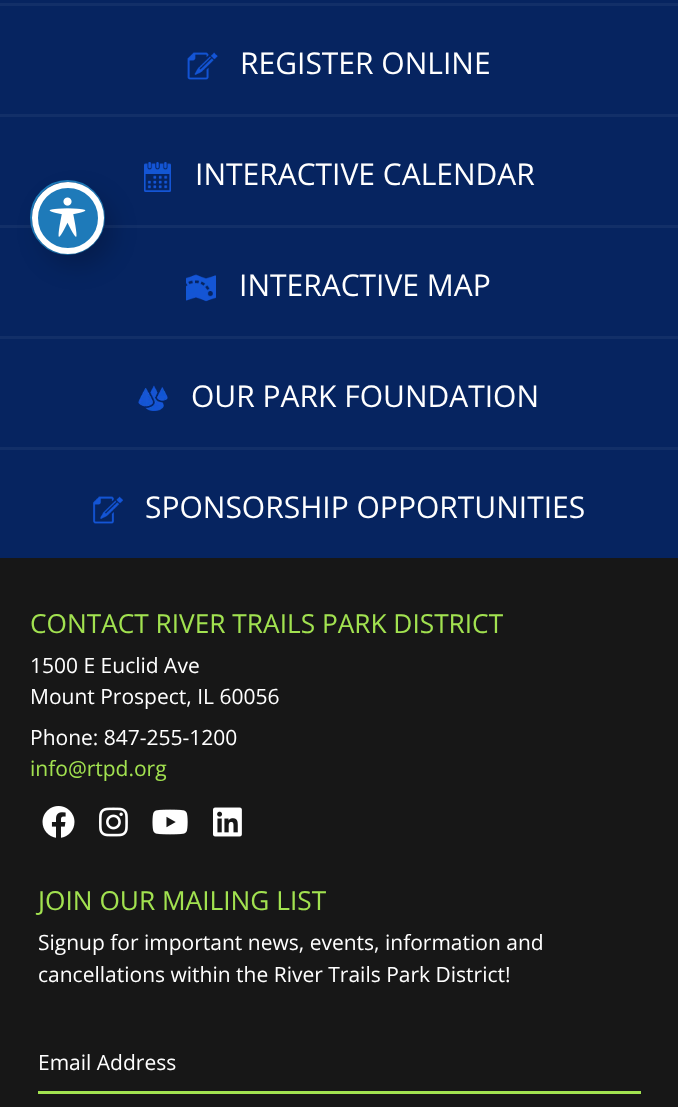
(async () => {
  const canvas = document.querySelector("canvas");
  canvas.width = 678;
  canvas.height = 1107;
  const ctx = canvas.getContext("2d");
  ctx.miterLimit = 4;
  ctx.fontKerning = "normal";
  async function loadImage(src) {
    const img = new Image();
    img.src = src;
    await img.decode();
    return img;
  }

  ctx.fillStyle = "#171717";
  ctx.fillRect(0, 0, 678, 1107);
  for (const [x, y, w, h, color] of [
    [0, 0, 678, 558, "#062460"],
    [0, 3, 678, 3, "#122f68"],
    [0, 114, 678, 3, "#122f68"],
  ]) {
    ctx.fillStyle = color;
    ctx.fillRect(x, y, w, h);
  }
  ctx.drawImage(await loadImage("img/1.png"), 187, 52, 31, 28);
  ctx.fillRect(0, 225, 678, 3);
  ctx.drawImage(await loadImage("img/2.png"), 144, 162, 27, 30);
  ctx.fillRect(0, 336, 678, 3);
  ctx.drawImage(await loadImage("img/3.png"), 186, 274, 30, 28);
  ctx.fillRect(0, 447, 678, 3);
  ctx.drawImage(await loadImage("img/4.png"), 138, 385, 30, 26);
  ctx.drawImage(await loadImage("img/5.png"), 93, 496, 30, 28);
  ctx.drawImage(await loadImage("img/6.png"), 42, 806, 33, 32);
  ctx.drawImage(await loadImage("img/7.png"), 99, 807, 29, 30);
  ctx.drawImage(await loadImage("img/8.png"), 152, 809, 36, 26);
  ctx.drawImage(await loadImage("img/9.png"), 213, 807, 29, 30);
  ctx.fillStyle = "#a2e250";
  ctx.fillRect(38, 1091, 603, 3);
  ctx.beginPath();
  ctx.arc(67.5, 217.5, 36.5, 0, Math.PI * 2);
  ctx.strokeStyle = "#1e7ab9";
  ctx.lineWidth = 2;
  ctx.stroke();
  ctx.fillStyle = "rgba(0, 0, 0, 0.2)";
  ctx.filter = "blur(12px)";
  ctx.beginPath();
  ctx.roundRect(41, 194, 72, 72, 36);
  ctx.fill();
  ctx.filter = "none";
  ctx.fillStyle = "#1e7ab9";
  ctx.beginPath();
  ctx.arc(68, 218, 33, 0, Math.PI * 2);
  ctx.fill();
  ctx.strokeStyle = "#ffffff";
  ctx.lineWidth = 6;
  ctx.stroke();
  ctx.drawImage(await loadImage("img/10.png"), 49, 197, 37, 40);
  ctx.font = "30px Open Sans";
  ctx.fillStyle = "#ffffff";
  for (const [text, x, y] of [
    ["REGISTER ONLINE", 240, 74],
    ["INTERACTIVE CALENDAR", 195, 185],
    ["INTERACTIVE MAP", 239, 296],
    ["OUR PARK FOUNDATION", 191, 407],
    ["SPONSORSHIP OPPORTUNITIES", 145, 518],
  ]) {
    ctx.fillText(text, x, y);
  }
  ctx.font = "26.25px Open Sans";
  ctx.fillStyle = "#a2e250";
  ctx.fillText("CONTACT RIVER TRAILS PARK DISTRICT", 30, 633);
  ctx.font = "21px Open Sans";
  ctx.fillStyle = "#ffffff";
  for (const [text, x, y] of [
    ["1500 E Euclid Ave", 30, 673],
    ["Mount Prospect, IL 60056", 30, 704],
    ["Phone: 847-255-1200", 30, 745],
  ]) {
    ctx.fillText(text, x, y);
  }
  ctx.fillStyle = "#a2e250";
  ctx.fillText("info@rtpd.org", 30, 776);
  ctx.font = "26.25px Open Sans";
  ctx.fillText("JOIN OUR MAILING LIST", 38, 910);
  ctx.font = "21px Open Sans";
  ctx.fillStyle = "#ffffff";
  for (const [text, x, y] of [
    ["Signup for important news, events, information and", 38, 950],
    ["cancellations within the River Trails Park District!", 38, 982],
    ["Email Address", 38, 1070],
  ]) {
    ctx.fillText(text, x, y);
  }
})();
